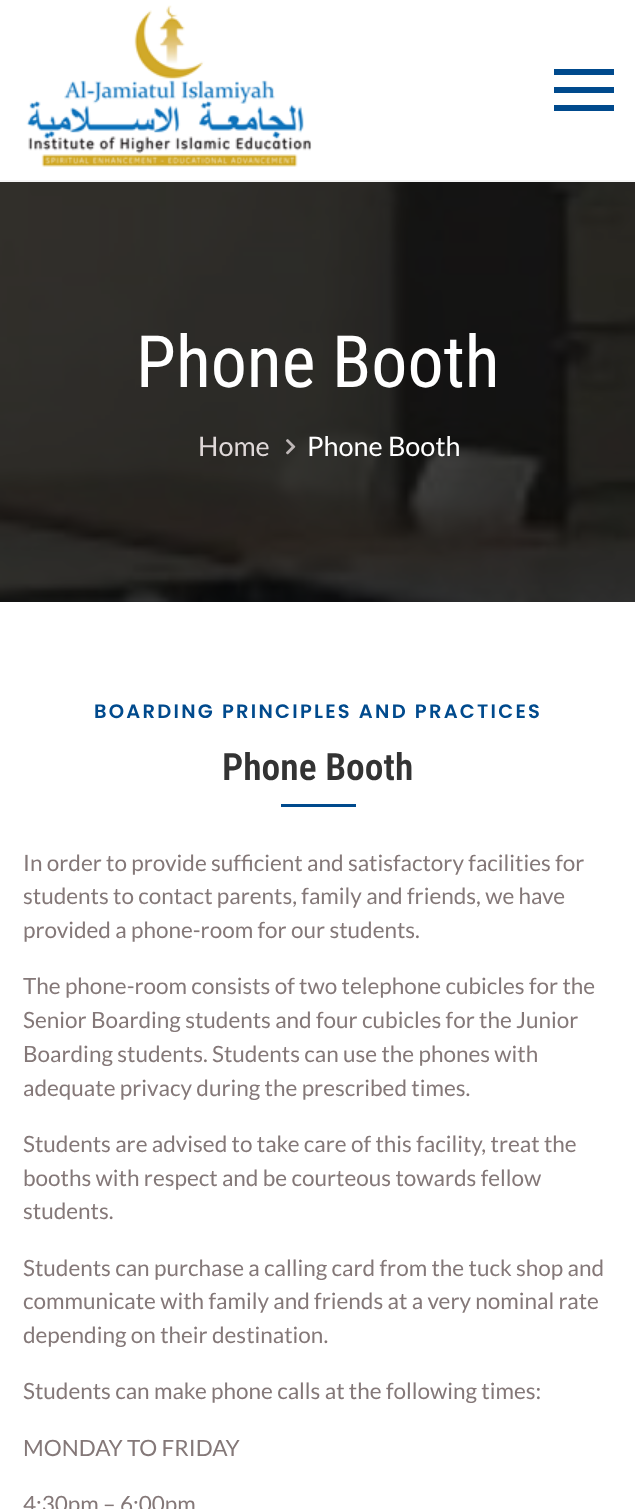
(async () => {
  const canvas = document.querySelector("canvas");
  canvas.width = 635;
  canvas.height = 1509;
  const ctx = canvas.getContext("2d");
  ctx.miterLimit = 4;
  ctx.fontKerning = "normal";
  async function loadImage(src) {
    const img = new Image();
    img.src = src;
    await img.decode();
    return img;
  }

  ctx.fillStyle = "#ffffff";
  ctx.fillRect(0, 0, 635, 1509);
  ctx.fillStyle = "#f5f5f5";
  ctx.fillRect(0, 180, 635, 2);
  ctx.drawImage(await loadImage("img/1.png"), 26, 5, 286, 162);
  for (const [x, y, w, h, color] of [
    [554, 69, 60, 6, "#004a8d"],
    [554, 87, 60, 6, "#004a8d"],
    [554, 105, 60, 6, "#004a8d"],
  ]) {
    ctx.fillStyle = color;
    ctx.fillRect(x, y, w, h);
  }
  ctx.drawImage(await loadImage("img/2.png"), 0, 182, 635, 420);
  ctx.drawImage(await loadImage("img/3.png"), 286, 439, 10, 16);
  ctx.fillRect(281, 804, 75, 3);
  ctx.font = "72px Roboto Condensed";
  ctx.fillStyle = "#ffffff";
  ctx.fillText("Phone Booth", 136, 387);
  ctx.font = "27px Lato";
  ctx.fillStyle = "#dfd8d8";
  ctx.fillText("Home", 198, 456);
  ctx.fillStyle = "#ffffff";
  ctx.fillText("Phone Booth", 307, 456);
  ctx.letterSpacing = "2.25px";
  ctx.font = "600 19.5px Poppins";
  ctx.fillStyle = "#004a8d";
  ctx.fillText("BOARDING PRINCIPLES AND PRACTICES", 94, 718);
  ctx.letterSpacing = "0px";
  ctx.font = "600 37.5px Roboto Condensed";
  ctx.fillStyle = "#333333";
  ctx.fillText("Phone Booth", 222, 780);
  ctx.font = "22.5px Lato";
  ctx.fillStyle = "#847878";
  for (const [text, x, y] of [
    ["In order to provide sufficient and satisfactory facilities for", 23, 871],
    ["students to contact parents, family and friends, we have", 23, 904],
    ["provided a phone-room for our students.", 23, 938],
    ["The phone-room consists of two telephone cubicles for the", 23, 994],
    ["Senior Boarding students and four cubicles for the Junior", 23, 1028],
    ["Boarding students. Students can use the phones with", 23, 1062],
    ["adequate privacy during the prescribed times.", 23, 1096],
    ["Students are advised to take care of this facility, treat the", 23, 1152],
    ["booths with respect and be courteous towards fellow", 23, 1186],
    ["students.", 23, 1219],
    ["Students can purchase a calling card from the tuck shop and", 23, 1276],
    ["communicate with family and friends at a very nominal rate", 23, 1309],
    ["depending on their destination.", 23, 1343],
    ["Students can make phone calls at the following times:", 23, 1399],
    ["MONDAY TO FRIDAY", 23, 1456],
    ["4:30pm – 6:00pm", 23, 1512],
  ]) {
    ctx.fillText(text, x, y);
  }
})();
